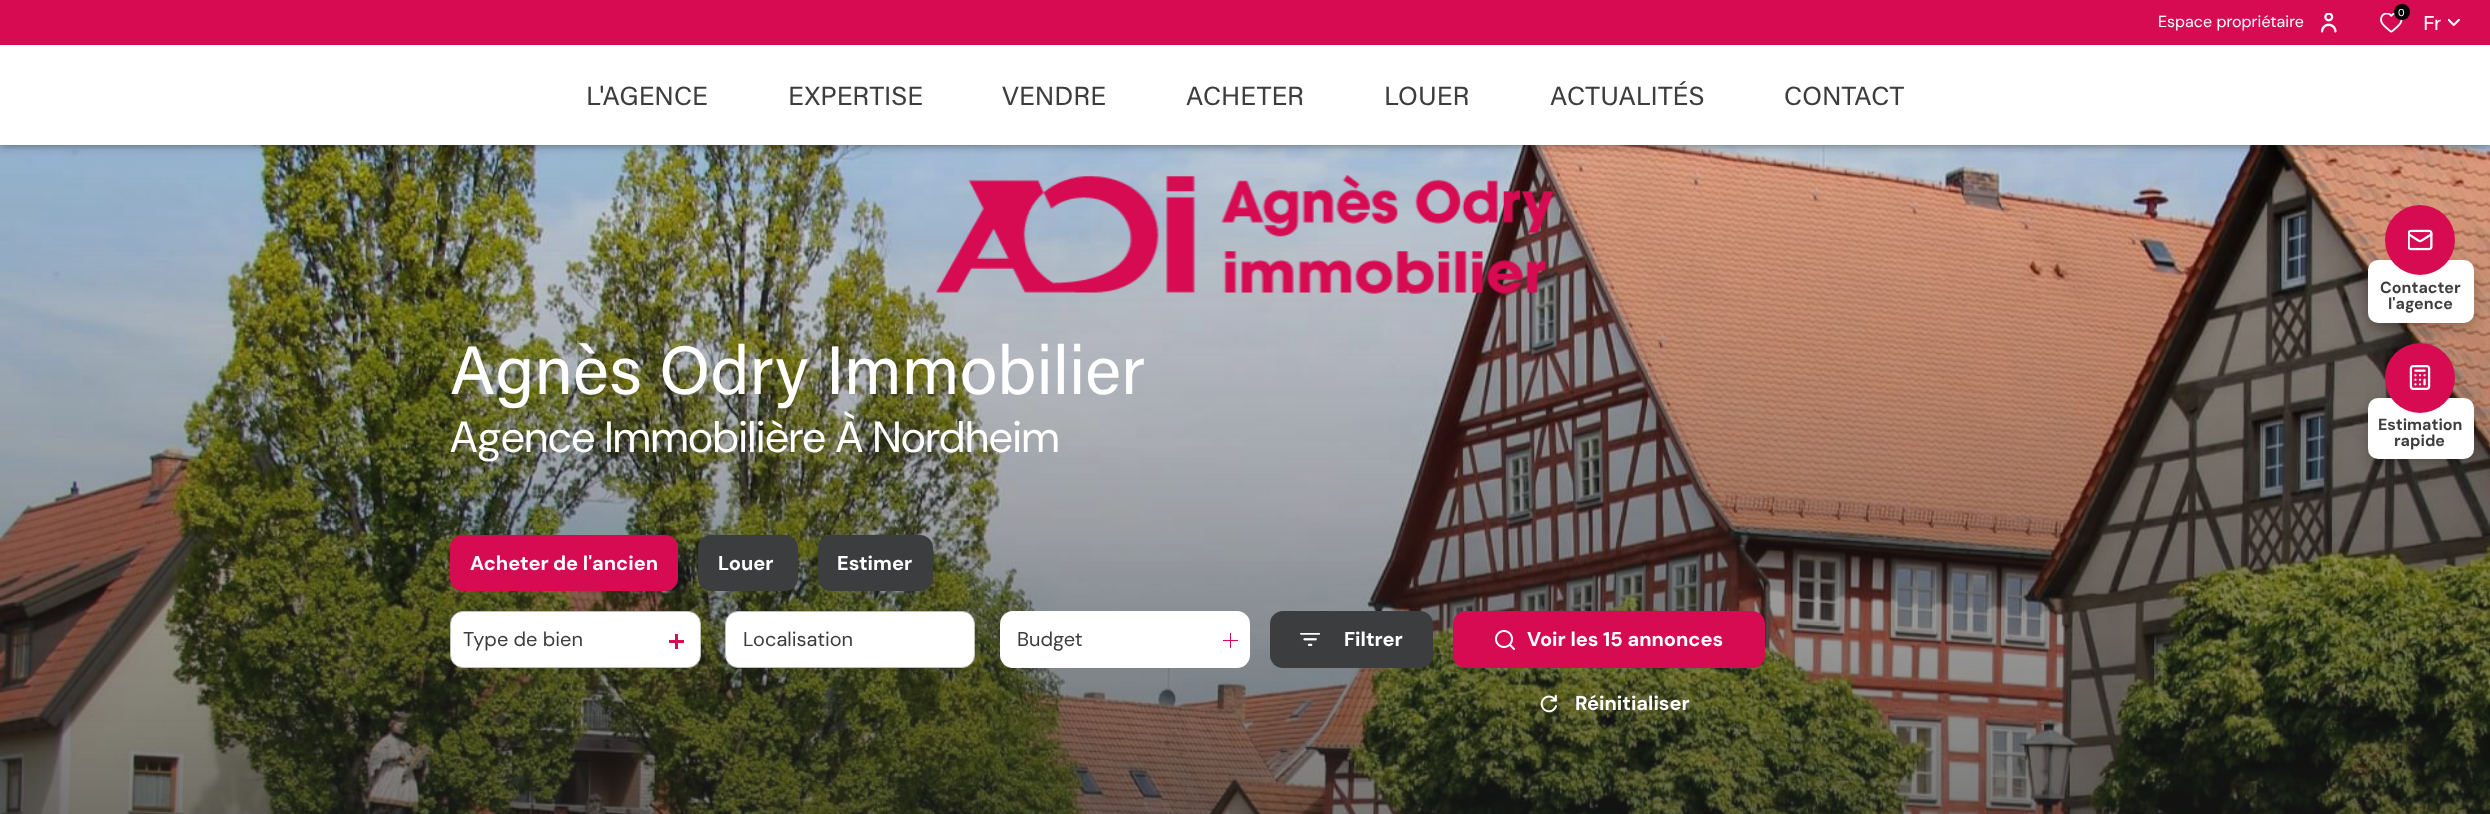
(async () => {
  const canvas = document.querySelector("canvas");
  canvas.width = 2490;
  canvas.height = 814;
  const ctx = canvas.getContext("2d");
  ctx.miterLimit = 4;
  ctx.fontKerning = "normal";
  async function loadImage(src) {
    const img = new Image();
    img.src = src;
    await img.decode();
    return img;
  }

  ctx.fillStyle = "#ffffff";
  ctx.fillRect(0, 0, 2490, 814);
  ctx.drawImage(await loadImage("img/5.png"), 0, 145, 2490, 669);
  ctx.fillStyle = "rgba(10, 10, 10, 0.5)";
  ctx.filter = "blur(5px)";
  ctx.beginPath();
  ctx.rect(0, 45, 2490, 100);
  ctx.fill();
  ctx.filter = "none";
  ctx.fillStyle = "#d60b52";
  ctx.fillRect(0, 0, 2490, 45);
  ctx.drawImage(await loadImage("img/1.png"), 2380, 13, 23, 20);
  ctx.fillStyle = "#000000";
  ctx.beginPath();
  ctx.arc(2402, 12, 8, 0, Math.PI * 2);
  ctx.fill();
  ctx.drawImage(await loadImage("img/2.png"), 2321, 13, 16, 20);
  ctx.drawImage(await loadImage("img/3.png"), 2448, 19, 12, 7);
  ctx.fillStyle = "#ffffff";
  ctx.fillRect(0, 45, 2490, 100);
  ctx.drawImage(await loadImage("img/4.png"), 936, 175, 618, 119);
  ctx.fillStyle = "#d60b52";
  ctx.beginPath();
  ctx.roundRect(450, 535, 228, 56, 13);
  ctx.fill();
  ctx.fillStyle = "#3c3d3e";
  ctx.beginPath();
  ctx.roundRect(698, 535, 100, 56, 13);
  ctx.fill();
  ctx.beginPath();
  ctx.roundRect(818, 535, 115, 56, 13);
  ctx.fill();
  ctx.fillStyle = "#ffffff";
  ctx.beginPath();
  ctx.roundRect(450.5, 611.5, 250, 56, 12.5);
  ctx.fill();
  ctx.strokeStyle = "#bfbfbf";
  ctx.stroke();
  ctx.fillStyle = "#d60b52";
  ctx.fillRect(669, 640, 15, 3);
  ctx.fillRect(675, 634, 3, 15);
  ctx.fillStyle = "#ffffff";
  ctx.beginPath();
  ctx.roundRect(725.5, 611.5, 249, 56, 12.5);
  ctx.fill();
  ctx.stroke();
  ctx.beginPath();
  ctx.roundRect(1000, 611, 250, 57, 13);
  ctx.fill();
  ctx.fillStyle = "#d60b52";
  ctx.fillRect(1230, 633, 1, 15);
  ctx.fillRect(1223, 640, 15, 1);
  ctx.fillStyle = "#3c3d3e";
  ctx.beginPath();
  ctx.roundRect(1270, 611, 163, 57, 13);
  ctx.fill();
  ctx.drawImage(await loadImage("img/6.png"), 1300, 633, 20, 13);
  ctx.fillStyle = "#d60b52";
  ctx.beginPath();
  ctx.roundRect(1453, 611, 312, 57, 13);
  ctx.fill();
  ctx.drawImage(await loadImage("img/7.png"), 1495, 630, 20, 20);
  ctx.drawImage(await loadImage("img/8.png"), 1540, 695, 17, 18);
  ctx.fillStyle = "rgba(10, 10, 10, 0.25)";
  ctx.filter = "blur(6px)";
  ctx.beginPath();
  ctx.roundRect(2368, 266, 106, 63, 10);
  ctx.fill();
  ctx.filter = "none";
  ctx.fillStyle = "#ffffff";
  ctx.beginPath();
  ctx.roundRect(2368, 260, 106, 63, 10);
  ctx.fill();
  ctx.fillStyle = "#d60b52";
  ctx.beginPath();
  ctx.arc(2420, 240, 35, 0, Math.PI * 2);
  ctx.fill();
  ctx.drawImage(await loadImage("img/9.png"), 2408, 229, 25, 22);
  ctx.fillStyle = "rgba(10, 10, 10, 0.25)";
  ctx.filter = "blur(6px)";
  ctx.beginPath();
  ctx.roundRect(2368, 404, 106, 61, 10);
  ctx.fill();
  ctx.filter = "none";
  ctx.fillStyle = "#ffffff";
  ctx.beginPath();
  ctx.roundRect(2368, 398, 106, 61, 10);
  ctx.fill();
  ctx.fillStyle = "#d60b52";
  ctx.beginPath();
  ctx.arc(2420, 378, 35, 0, Math.PI * 2);
  ctx.fill();
  ctx.drawImage(await loadImage("img/10.png"), 2409, 365, 22, 25);
  ctx.font = "10px 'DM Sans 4'";
  ctx.fillStyle = "#ffffff";
  ctx.fillText("0", 2398, 16);
  ctx.font = "16px 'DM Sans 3'";
  ctx.fillText("Espace propriétaire", 2158, 27);
  ctx.font = "20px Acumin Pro";
  ctx.fillText("Fr", 2423, 30);
  ctx.font = "26.25px Acumin Pro";
  ctx.fillStyle = "#3c3d3e";
  for (const [text, x, y] of [
    ["L'AGENCE", 586, 105],
    ["EXPERTISE", 788, 105],
    ["VENDRE", 1002, 105],
    ["ACHETER", 1186, 105],
    ["LOUER", 1384, 105],
    ["ACTUALITÉS", 1550, 105],
    ["CONTACT", 1784, 105],
  ]) {
    ctx.fillText(text, x, y);
  }
  ctx.font = "68.4px Acumin Pro";
  ctx.fillStyle = "#ffffff";
  ctx.fillText("Agnès Odry Immobilier", 450, 394);
  ctx.font = "43.75px DM Sans";
  ctx.fillText("Agence Immobilière À Nordheim", 450, 452);
  ctx.font = "bold 20px DM Sans";
  for (const [text, x, y] of [
    ["Acheter", 470, 570],
    ["de l'ancien", 553, 570],
    ["Louer", 718, 570],
    ["Estimer", 837, 570],
  ]) {
    ctx.fillText(text, x, y);
  }
  ctx.font = "20px 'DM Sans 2'";
  ctx.fillStyle = "#3c3d3e";
  for (const [text, x, y] of [
    ["Type de bien", 463, 646],
    ["Localisation", 743, 646],
    ["Budget", 1017, 646],
  ]) {
    ctx.fillText(text, x, y);
  }
  ctx.font = "bold 20px DM Sans";
  ctx.fillStyle = "#ffffff";
  for (const [text, x, y] of [
    ["Filtrer", 1344, 646],
    ["Voir les 15 annonces", 1527, 646],
    ["Réinitialiser", 1575, 710],
  ]) {
    ctx.fillText(text, x, y);
  }
  ctx.font = "bold 16px 'DM Sans 2'";
  ctx.fillStyle = "#3c3d3e";
  for (const [text, x, y] of [
    ["Contacter", 2380, 293],
    ["l'agence", 2388, 309],
    ["Estimation", 2378, 430],
    ["rapide", 2394, 446],
  ]) {
    ctx.fillText(text, x, y);
  }
})();
